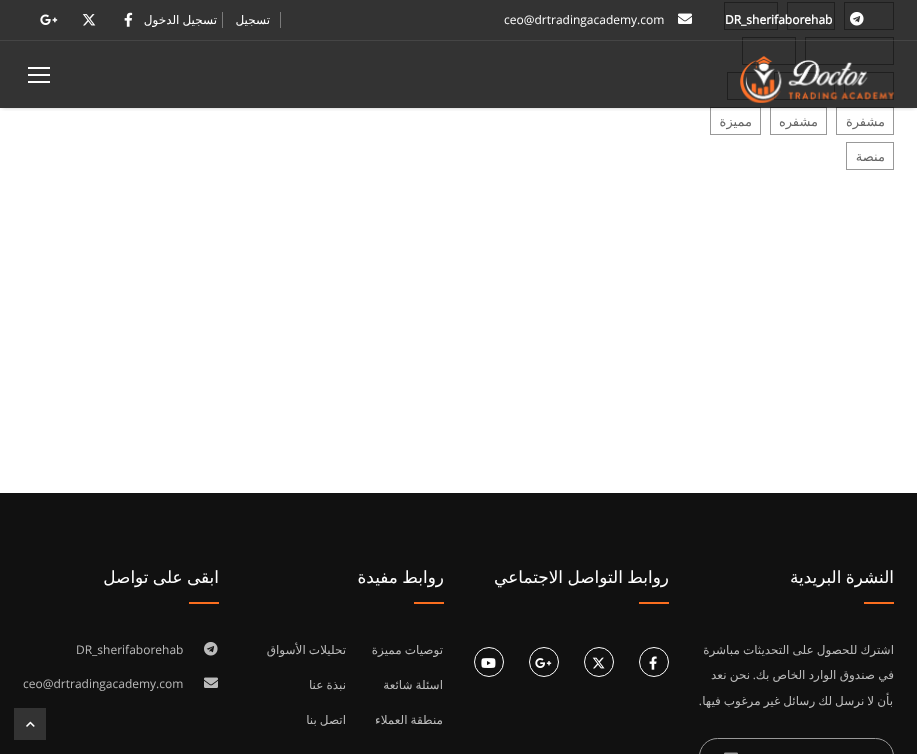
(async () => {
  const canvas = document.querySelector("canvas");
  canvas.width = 917;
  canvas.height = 754;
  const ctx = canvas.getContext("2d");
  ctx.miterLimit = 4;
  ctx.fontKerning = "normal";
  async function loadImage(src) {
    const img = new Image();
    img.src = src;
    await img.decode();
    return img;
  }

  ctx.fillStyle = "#ffffff";
  ctx.fillRect(0, 0, 917, 754);
  ctx.strokeStyle = "#999999";
  ctx.strokeRect(844.5, 2.5, 49, 27);
  ctx.strokeRect(787.5, 2.5, 47, 27);
  ctx.strokeRect(724.5, 2.5, 53, 27);
  ctx.strokeRect(805.5, 37.5, 88, 27);
  ctx.strokeRect(742.5, 37.5, 53, 27);
  ctx.strokeRect(844.5, 72.5, 49, 27);
  ctx.strokeRect(774.5, 72.5, 60, 27);
  ctx.strokeRect(727.5, 72.5, 37, 27);
  ctx.strokeRect(836.5, 107.5, 57, 27);
  ctx.strokeRect(770.5, 107.5, 56, 27);
  ctx.strokeRect(710.5, 107.5, 50, 27);
  ctx.save();
  ctx.beginPath();
  ctx.rect(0, 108, 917, 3);
  ctx.clip();
  ctx.fillStyle = "rgba(42, 42, 42, 0.4)";
  ctx.filter = "blur(2.5px)";
  ctx.beginPath();
  ctx.rect(2, 3, 913, 104);
  ctx.fill();
  ctx.filter = "none";
  ctx.restore();
  ctx.fillStyle = "rgba(0, 0, 0, 0.8)";
  ctx.fillRect(0, 0, 917, 108);
  ctx.fillStyle = "rgba(102, 102, 102, 0.35)";
  ctx.fillRect(0, 40, 917, 1);
  ctx.drawImage(await loadImage("img/1.png"), 850, 12, 14, 14);
  ctx.drawImage(await loadImage("img/2.png"), 678, 13, 14, 11);
  ctx.fillStyle = "#7a7a7a";
  ctx.fillRect(280, 12, 1, 16);
  ctx.fillRect(222, 12, 1, 16);
  ctx.drawImage(await loadImage("img/3.png"), 124, 12, 9, 15);
  ctx.drawImage(await loadImage("img/4.png"), 82, 14, 14, 12);
  ctx.drawImage(await loadImage("img/5.png"), 40, 14, 18, 11);
  ctx.drawImage(await loadImage("img/6.png"), 740, 56, 154, 47);
  for (const [x, y, w, h, color] of [
    [28, 67, 22, 2, "#ffffff"],
    [28, 74, 22, 2, "#ffffff"],
    [28, 81, 22, 2, "#ffffff"],
  ]) {
    ctx.fillStyle = color;
    ctx.fillRect(x, y, w, h);
  }
  ctx.strokeRect(846.5, 142.5, 47, 27);
  ctx.fillStyle = "#111111";
  ctx.fillRect(0, 493, 917, 261);
  ctx.fillStyle = "#fb6e1f";
  ctx.fillRect(864, 602, 30, 2);
  ctx.beginPath();
  ctx.roundRect(699.5, 738.5, 194, 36, 19.5);
  ctx.stroke();
  ctx.drawImage(await loadImage("img/7.png"), 724, 752, 14, 2);
  ctx.fillRect(639, 602, 30, 2);
  ctx.beginPath();
  ctx.arc(654, 662, 14.5, 0, Math.PI * 2);
  ctx.strokeStyle = "#ffffff";
  ctx.stroke();
  ctx.drawImage(await loadImage("img/8.png"), 649, 656, 8, 14);
  ctx.beginPath();
  ctx.arc(599, 662, 14.5, 0, Math.PI * 2);
  ctx.stroke();
  ctx.drawImage(await loadImage("img/9.png"), 592, 657, 13, 12);
  ctx.beginPath();
  ctx.arc(544, 662, 14.5, 0, Math.PI * 2);
  ctx.stroke();
  ctx.drawImage(await loadImage("img/10.png"), 535, 658, 17, 10);
  ctx.beginPath();
  ctx.arc(489, 662, 14.5, 0, Math.PI * 2);
  ctx.stroke();
  ctx.drawImage(await loadImage("img/11.png"), 481, 658, 15, 10);
  ctx.fillRect(414, 602, 30, 2);
  ctx.fillRect(189, 602, 30, 2);
  ctx.drawImage(await loadImage("img/12.png"), 204, 642, 14, 14);
  ctx.drawImage(await loadImage("img/13.png"), 204, 677, 14, 11);
  ctx.fillStyle = "#333333";
  ctx.fillRect(14, 708, 32, 32);
  ctx.drawImage(await loadImage("img/14.png"), 26, 721, 9, 6);
  ctx.font = "bold 12px Open Sans";
  ctx.fillStyle = "#ffffff";
  ctx.fillText("DR_sherifaborehab", 725, 24);
  ctx.font = "12px Open Sans";
  ctx.fillText("ceo@drtradingacademy.com", 504, 24);
  ctx.direction = "rtl";
  ctx.font = "12px DejaVu Sans";
  ctx.fillText("تسجيل", 270, 24);
  ctx.wordSpacing = "-0.75px";
  ctx.fillText("تسجيل الدخول", 217, 24);
  ctx.wordSpacing = "0px";
  ctx.font = "13px DejaVu Sans";
  ctx.fillStyle = "#666666";
  for (const [text, x, y] of [
    ["مشفرة", 885, 126],
    ["مشفره", 818, 126],
    ["مميزة", 752, 126],
    ["منصة", 885, 161],
  ]) {
    ctx.fillText(text, x, y);
  }
  ctx.wordSpacing = "-1px";
  ctx.font = "16.9px DejaVu Sans";
  ctx.fillStyle = "#ffffff";
  ctx.fillText("النشرة البريدية", 894, 583);
  ctx.wordSpacing = "-0.75px";
  ctx.font = "12px DejaVu Sans";
  ctx.fillStyle = "#bbbbbb";
  ctx.fillText("اشترك للحصول على التحديثات مباشرة", 894, 654);
  ctx.wordSpacing = "-0.5px";
  ctx.fillText("في صندوق الوارد الخاص بك", 894, 679);
  ctx.wordSpacing = "0px";
  ctx.font = "12px Open Sans";
  ctx.fillText(".", 756, 679);
  ctx.wordSpacing = "-0.5px";
  ctx.font = "12px DejaVu Sans";
  ctx.fillText("نحن نعد", 750, 679);
  ctx.wordSpacing = "-0.75px";
  ctx.fillText("بأن لا نرسل لك رسائل غير مرغوب فيها", 893, 705);
  ctx.wordSpacing = "0px";
  ctx.font = "12px Open Sans";
  ctx.fillText(".", 702, 705);
  ctx.wordSpacing = "-1px";
  ctx.font = "16.9px DejaVu Sans";
  ctx.fillStyle = "#ffffff";
  ctx.fillText("روابط التواصل الاجتماعي", 669, 583);
  ctx.fillText("روابط مفيدة", 444, 583);
  ctx.wordSpacing = "-0.75px";
  ctx.font = "12px DejaVu Sans";
  ctx.fillStyle = "#bbbbbb";
  for (const [text, x, y] of [
    ["توصيات مميزة", 443, 654],
    ["تحليلات الأسواق", 346, 654],
    ["اسئلة شائعة", 443, 689],
    ["نبذة عنا", 346, 689],
    ["منطقة العملاء", 443, 724],
    ["اتصل بنا", 346, 724],
  ]) {
    ctx.fillText(text, x, y);
  }
  ctx.wordSpacing = "-1px";
  ctx.font = "16.9px DejaVu Sans";
  ctx.fillStyle = "#ffffff";
  ctx.fillText("ابقى على تواصل", 219, 583);
  ctx.wordSpacing = "0px";
  ctx.direction = "ltr";
  ctx.font = "12px Open Sans";
  ctx.fillStyle = "#bbbbbb";
  ctx.fillText("DR_sherifaborehab", 76, 654);
  ctx.fillText("ceo@drtradingacademy.com", 23, 688);
})();
